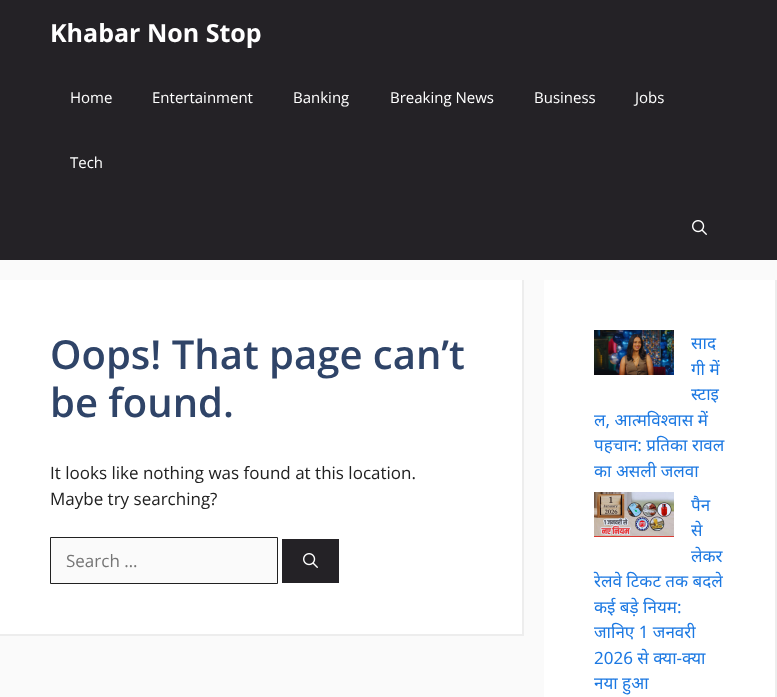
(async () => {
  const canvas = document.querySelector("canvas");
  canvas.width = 777;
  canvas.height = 697;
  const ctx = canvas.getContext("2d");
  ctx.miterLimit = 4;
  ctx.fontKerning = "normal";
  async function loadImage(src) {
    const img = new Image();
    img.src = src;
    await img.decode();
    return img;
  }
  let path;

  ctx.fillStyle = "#fafafa";
  ctx.fillRect(0, 0, 777, 697);
  ctx.fillStyle = "#242226";
  ctx.fillRect(0, 0, 777, 260);
  ctx.drawImage(await loadImage("img/1.png"), 692, 220, 15, 15);
  ctx.fillStyle = "#ffffff";
  ctx.fillRect(0, 280, 524, 356);
  ctx.fillStyle = "#ededed";
  path = new Path2D("M524 280V636L522 634V280Z");
  ctx.fill(path);
  ctx.fillStyle = "rgba(0, 0, 0, 0.07)";
  path = new Path2D("M524 636H0V634H522Z");
  ctx.fill(path);
  ctx.fillStyle = "#fafafa";
  ctx.beginPath();
  ctx.rect(50.5, 537.5, 227, 46);
  ctx.fill();
  ctx.strokeStyle = "#212121";
  ctx.stroke();
  ctx.fillStyle = "#242226";
  ctx.fillRect(282, 539, 57, 44);
  ctx.drawImage(await loadImage("img/1.png"), 303, 553, 15, 15);
  ctx.fillStyle = "#ffffff";
  ctx.fillRect(544, 280, 231, 417);
  ctx.fillStyle = "#ededed";
  path = new Path2D("M777 280V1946L775 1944V280Z");
  ctx.fill(path);
  ctx.drawImage(await loadImage("img/2.png"), 594, 330, 80, 45);
  ctx.drawImage(await loadImage("img/3.png"), 594, 492, 80, 45);
  ctx.font = "bold 25px Open Sans";
  ctx.fillStyle = "#ffffff";
  ctx.fillText("Khabar Non Stop", 50, 42);
  ctx.font = "15px Open Sans";
  for (const [text, x, y] of [
    ["Home", 70, 103],
    ["Entertainment", 152, 103],
    ["Banking", 293, 103],
    ["Breaking News", 390, 103],
    ["Business", 534, 103],
    ["Jobs", 635, 103],
    ["Tech", 70, 168],
  ]) {
    ctx.fillText(text, x, y);
  }
  ctx.font = "600 40px Open Sans";
  ctx.fillStyle = "#2f4468";
  ctx.fillText("Oops! That page can’t", 50, 369);
  ctx.fillText("be found.", 50, 417);
  ctx.font = "17px Open Sans";
  ctx.fillStyle = "#212121";
  ctx.fillText("It looks like nothing was found at this location.", 50, 479);
  ctx.fillText("Maybe try searching?", 50, 505);
  ctx.fillStyle = "#757575";
  ctx.fillText("Search …", 66, 567);
  ctx.font = "17px Noto Sans";
  ctx.fillStyle = "#1b78e2";
  for (const [text, x, y] of [
    ["साद", 691, 349],
    ["गी में", 691, 375],
    ["स्टाइ", 691, 400],
    ["ल, आत्मविश्वास में", 594, 426],
    ["पहचान: प्रतिका रावल", 594, 451],
    ["का असली जलवा", 594, 477],
    ["पैन", 691, 511],
    ["से", 691, 536],
    ["लेकर", 691, 562],
    ["रेलवे टिकट तक बदले", 594, 587],
    ["कई बड़े नियम:", 594, 613],
    ["जानिए 1 जनवरी", 594, 638],
    ["2026 से क्या-क्या", 594, 664],
    ["नया हुआ", 594, 689],
  ]) {
    ctx.fillText(text, x, y);
  }
})();
